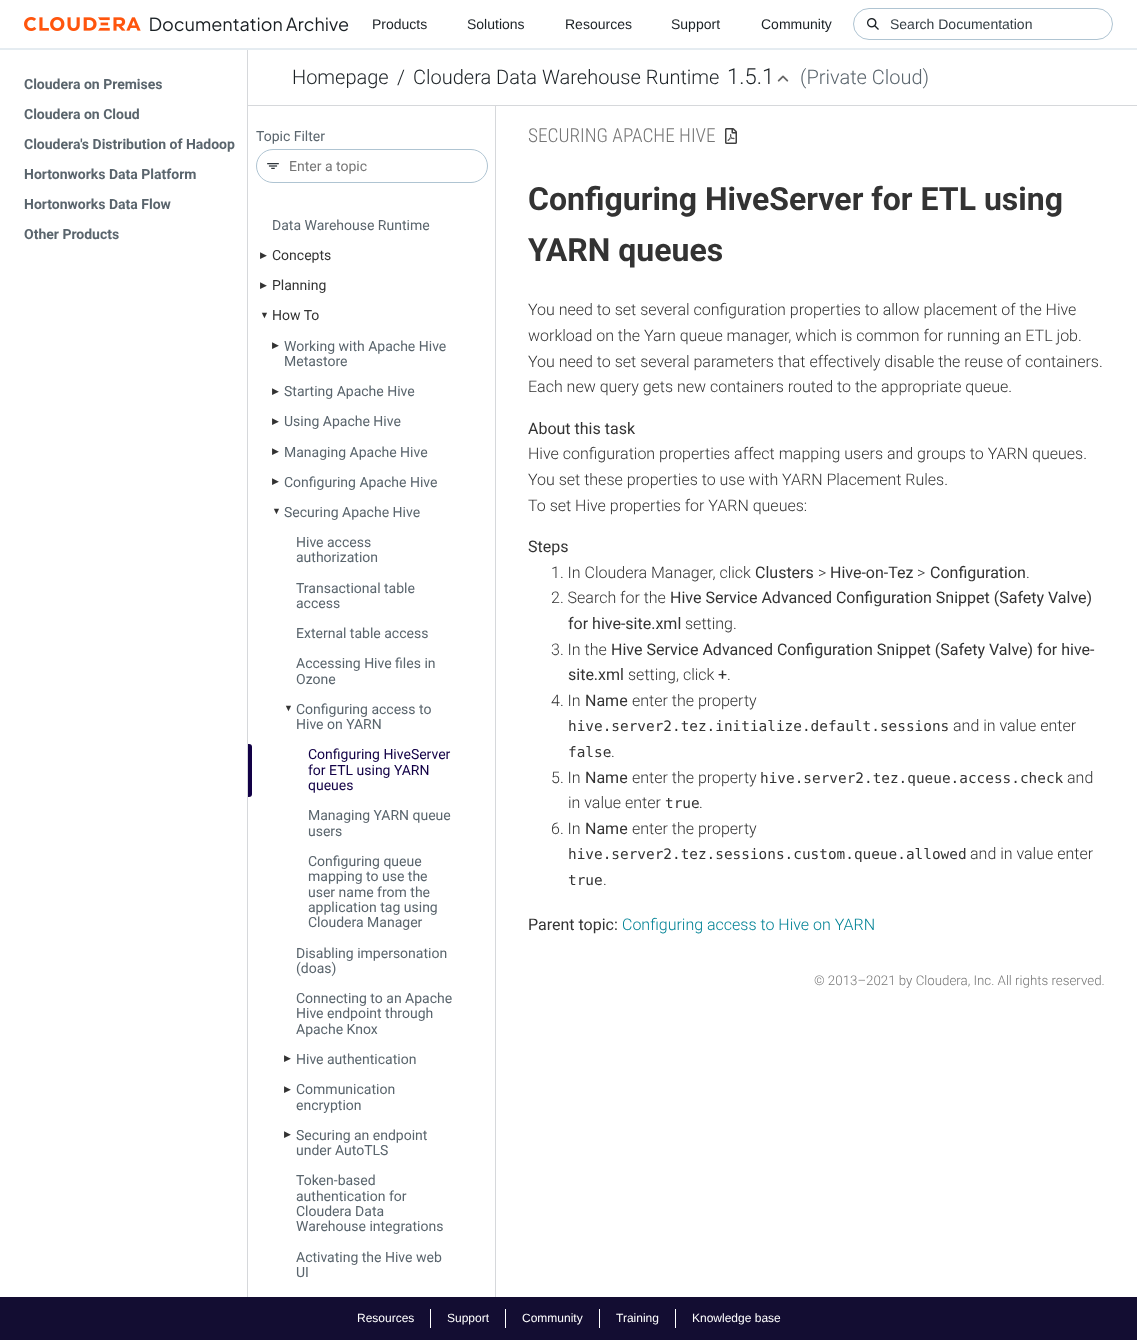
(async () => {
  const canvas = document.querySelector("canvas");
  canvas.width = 1137;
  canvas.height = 1340;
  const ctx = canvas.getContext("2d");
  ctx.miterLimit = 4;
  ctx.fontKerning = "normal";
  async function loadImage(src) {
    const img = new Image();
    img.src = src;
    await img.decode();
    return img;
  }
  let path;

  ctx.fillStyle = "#ffffff";
  ctx.fillRect(0, 0, 1137, 1340);
  ctx.fillStyle = "#e5ecf1";
  ctx.fillRect(0, 48, 1137, 2);
  ctx.drawImage(await loadImage("img/1.png"), 24, 17, 325, 15);
  ctx.beginPath();
  ctx.roundRect(853.5, 8.5, 259, 31, 15.5);
  ctx.strokeStyle = "#afc4d2";
  ctx.stroke();
  ctx.drawImage(await loadImage("img/2.png"), 867, 18, 12, 12);
  ctx.fillStyle = "#d6d8db";
  ctx.fillRect(247, 50, 1, 1247);
  ctx.fillRect(496, 105, 641, 1);
  ctx.drawImage(await loadImage("img/3.png"), 777, 75, 12, 7);
  ctx.save();
  ctx.beginPath();
  ctx.rect(248, 105, 248, 1192);
  ctx.clip();
  path = new Path2D("M149 6H595V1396H149ZM247 106H495V1298H247Z");
  ctx.fill(path, "evenodd");
  ctx.restore();
  ctx.beginPath();
  ctx.roundRect(256.5, 149.5, 231, 33, 16.5);
  ctx.stroke();
  ctx.drawImage(await loadImage("img/4.png"), 267, 163, 12, 6);
  ctx.fillStyle = "#120046";
  ctx.beginPath();
  ctx.roundRect(248, 744, 4, 53, [0, 3, 3, 0]);
  ctx.fill();
  ctx.drawImage(await loadImage("img/5.png"), 725, 128, 12, 16);
  for (const [x, y, w, h, color] of [
    [0, 1297, 1137, 43, "#130d32"],
    [430, 1309, 1, 19, "#ffffff"],
    [505, 1309, 1, 19, "#ffffff"],
    [599, 1309, 1, 19, "#ffffff"],
    [675, 1309, 1, 19, "#ffffff"],
  ]) {
    ctx.fillStyle = color;
    ctx.fillRect(x, y, w, h);
  }
  ctx.font = "14px Liberation Sans";
  ctx.fillStyle = "#1a2024";
  for (const [text, x, y] of [
    ["Products", 372, 29],
    ["Solutions", 467, 29],
    ["Resources", 565, 29],
    ["Support", 671, 29],
    ["Community", 761, 29],
  ]) {
    ctx.fillText(text, x, y);
  }
  ctx.fillStyle = "#333d43";
  ctx.fillText("Search Documentation", 890, 29);
  ctx.font = "bold 14px Roboto";
  ctx.fillStyle = "#5a656d";
  for (const [text, x, y] of [
    ["Cloudera on Premises", 24, 89],
    ["Cloudera on Cloud", 24, 119],
    ["Cloudera's Distribution of Hadoop", 24, 149],
    ["Hortonworks Data Platform", 24, 179],
    ["Hortonworks Data Flow", 24, 209],
    ["Other Products", 24, 239],
  ]) {
    ctx.fillText(text, x, y);
  }
  ctx.font = "300 20px Roboto";
  ctx.fillStyle = "#1a2024";
  for (const [text, x, y] of [
    ["Homepage", 292, 84],
    ["/", 397, 84],
    ["Cloudera Data Warehouse Runtime", 413, 84],
  ]) {
    ctx.fillText(text, x, y);
  }
  ctx.font = "300 22px Roboto";
  ctx.fillText("1.5.1", 727, 84);
  ctx.font = "300 20px Roboto";
  ctx.fillStyle = "#5a656d";
  ctx.fillText("(Private Cloud)", 800, 84);
  ctx.font = "14px Roboto";
  ctx.fillText("Topic Filter", 256, 141);
  ctx.fillStyle = "#757575";
  ctx.fillText("Enter a topic", 289, 171);
  ctx.fillStyle = "#5a656d";
  ctx.fillText("Data Warehouse Runtime", 272, 230);
  ctx.font = "9px DejaVu Sans";
  ctx.fillStyle = "#333333";
  ctx.fillText("▶︎", 260, 258);
  ctx.font = "14px Roboto";
  ctx.fillText("Concepts", 272, 260);
  ctx.font = "9px DejaVu Sans";
  ctx.fillText("▶︎", 260, 288);
  ctx.font = "14px Roboto";
  ctx.fillText("Planning", 272, 290);
  ctx.font = "9px Liberation Sans";
  ctx.fillText("▼", 260, 318);
  ctx.font = "14px Roboto";
  ctx.fillText("How To", 272, 320);
  ctx.font = "9px DejaVu Sans";
  ctx.fillText("▶︎", 272, 348);
  ctx.font = "14px Roboto";
  ctx.fillStyle = "#5a656d";
  ctx.fillText("Working with Apache Hive", 284, 351);
  ctx.fillText("Metastore", 284, 366);
  ctx.font = "9px DejaVu Sans";
  ctx.fillStyle = "#333333";
  ctx.fillText("▶︎", 272, 394);
  ctx.font = "14px Roboto";
  ctx.fillStyle = "#5a656d";
  ctx.fillText("Starting Apache Hive", 284, 396);
  ctx.font = "9px DejaVu Sans";
  ctx.fillStyle = "#333333";
  ctx.fillText("▶︎", 272, 424);
  ctx.font = "14px Roboto";
  ctx.fillStyle = "#5a656d";
  ctx.fillText("Using Apache Hive", 284, 426);
  ctx.font = "9px DejaVu Sans";
  ctx.fillStyle = "#333333";
  ctx.fillText("▶︎", 272, 454);
  ctx.font = "14px Roboto";
  ctx.fillStyle = "#5a656d";
  ctx.fillText("Managing Apache Hive", 284, 457);
  ctx.font = "9px DejaVu Sans";
  ctx.fillStyle = "#333333";
  ctx.fillText("▶︎", 272, 484);
  ctx.font = "14px Roboto";
  ctx.fillStyle = "#5a656d";
  ctx.fillText("Configuring Apache Hive", 284, 487);
  ctx.font = "9px Liberation Sans";
  ctx.fillStyle = "#333333";
  ctx.fillText("▼", 272, 514);
  ctx.font = "14px Roboto";
  ctx.fillStyle = "#5a656d";
  for (const [text, x, y] of [
    ["Securing Apache Hive", 284, 517],
    ["Hive access", 296, 547],
    ["authorization", 296, 562],
    ["Transactional table", 296, 593],
    ["access", 296, 608],
    ["External table access", 296, 638],
    ["Accessing Hive files in", 296, 668],
    ["Ozone", 296, 684],
  ]) {
    ctx.fillText(text, x, y);
  }
  ctx.font = "9px Liberation Sans";
  ctx.fillStyle = "#333333";
  ctx.fillText("▼", 284, 711);
  ctx.font = "14px Roboto";
  ctx.fillStyle = "#5a656d";
  ctx.fillText("Configuring access to", 296, 714);
  ctx.fillText("Hive on YARN", 296, 729);
  ctx.fillStyle = "#120046";
  for (const [text, x, y] of [
    ["Configuring HiveServer", 308, 759],
    ["for ETL using YARN", 308, 775],
    ["queues", 308, 790],
  ]) {
    ctx.fillText(text, x, y);
  }
  ctx.fillStyle = "#5a656d";
  for (const [text, x, y] of [
    ["Managing YARN queue", 308, 820],
    ["users", 308, 836],
    ["Configuring queue", 308, 866],
    ["mapping to use the", 308, 881],
    ["user name from the", 308, 897],
    ["application tag using", 308, 912],
    ["Cloudera Manager", 308, 927],
    ["Disabling impersonation", 296, 958],
    ["(doas)", 296, 973],
    ["Connecting to an Apache", 296, 1003],
    ["Hive endpoint through", 296, 1018],
    ["Apache Knox", 296, 1034],
  ]) {
    ctx.fillText(text, x, y);
  }
  ctx.font = "9px DejaVu Sans";
  ctx.fillStyle = "#333333";
  ctx.fillText("▶︎", 284, 1061);
  ctx.font = "14px Roboto";
  ctx.fillStyle = "#5a656d";
  ctx.fillText("Hive authentication", 296, 1064);
  ctx.font = "9px DejaVu Sans";
  ctx.fillStyle = "#333333";
  ctx.fillText("▶︎", 284, 1092);
  ctx.font = "14px Roboto";
  ctx.fillStyle = "#5a656d";
  ctx.fillText("Communication", 296, 1094);
  ctx.fillText("encryption", 296, 1110);
  ctx.font = "9px DejaVu Sans";
  ctx.fillStyle = "#333333";
  ctx.fillText("▶︎", 284, 1137);
  ctx.font = "14px Roboto";
  ctx.fillStyle = "#5a656d";
  for (const [text, x, y] of [
    ["Securing an endpoint", 296, 1140],
    ["under AutoTLS", 296, 1155],
    ["Token-based", 296, 1185],
    ["authentication for", 296, 1201],
    ["Cloudera Data", 296, 1216],
    ["Warehouse integrations", 296, 1231],
    ["Activating the Hive web", 296, 1262],
    ["UI", 296, 1277],
  ]) {
    ctx.fillText(text, x, y);
  }
  ctx.font = "300 19.25px Roboto Condensed";
  ctx.fillStyle = "#757575";
  ctx.fillText("SECURING APACHE HIVE", 528, 142);
  ctx.font = "bold 32px Roboto";
  ctx.fillStyle = "#333333";
  ctx.fillText("Configuring HiveServer for ETL using", 528, 210);
  ctx.fillText("YARN queues", 528, 261);
  ctx.font = "300 16px Roboto";
  for (const [text, x, y] of [
    ["You need to set several configuration properties to allow placement of the Hive", 528, 315],
    ["workload on the Yarn queue manager, which is common for running an ETL job.", 528, 341],
    ["You need to set several parameters that effectively disable the reuse of containers.", 528, 367],
    ["Each new query gets new containers routed to the appropriate queue.", 528, 392],
  ]) {
    ctx.fillText(text, x, y);
  }
  ctx.font = "16px Roboto";
  ctx.fillText("About this task", 528, 434);
  ctx.font = "300 16px Roboto";
  for (const [text, x, y] of [
    ["Hive configuration properties affect mapping users and groups to YARN queues.", 528, 459],
    ["You set these properties to use with YARN Placement Rules.", 528, 485],
    ["To set Hive properties for YARN queues:", 528, 511],
  ]) {
    ctx.fillText(text, x, y);
  }
  ctx.font = "16px Roboto";
  ctx.fillText("Steps", 528, 552);
  ctx.font = "300 16px Roboto";
  ctx.fillText("1. In Cloudera Manager, click", 551, 578);
  ctx.font = "16px Roboto";
  ctx.fillText("Clusters", 755, 578);
  ctx.font = "300 16px Roboto";
  ctx.fillText(">", 818, 578);
  ctx.font = "16px Roboto";
  ctx.fillText("Hive-on-Tez", 830, 578);
  ctx.font = "300 16px Roboto";
  ctx.fillText(">", 917, 578);
  ctx.font = "16px Roboto";
  ctx.fillText("Configuration", 930, 578);
  ctx.font = "300 16px Roboto";
  ctx.fillText(".", 1026, 578);
  ctx.fillText("2. Search for the", 551, 603);
  ctx.font = "16px Roboto";
  ctx.fillText("Hive Service Advanced Configuration Snippet (Safety Valve)", 670, 603);
  ctx.fillText("for hive-site.xml", 568, 629);
  ctx.font = "300 16px Roboto";
  ctx.fillText("setting.", 685, 629);
  ctx.fillText("3. In the", 551, 655);
  ctx.font = "16px Roboto";
  ctx.fillText("Hive Service Advanced Configuration Snippet (Safety Valve) for hive-", 611, 655);
  ctx.fillText("site.xml", 568, 680);
  ctx.font = "300 16px Roboto";
  ctx.fillText("setting, click", 628, 680);
  ctx.font = "16px Roboto";
  ctx.fillText("+", 718, 680);
  ctx.font = "300 16px Roboto";
  ctx.fillText(".", 727, 680);
  ctx.fillText("4. In", 551, 706);
  ctx.font = "16px Roboto";
  ctx.fillText("Name", 585, 706);
  ctx.font = "300 16px Roboto";
  ctx.fillText("enter the property", 632, 706);
  ctx.font = "14.4px DejaVu Sans Mono";
  ctx.fillText("hive.server2.tez.initialize.default.sessions", 568, 731);
  ctx.font = "300 16px Roboto";
  ctx.fillText("and in value enter", 953, 731);
  ctx.font = "14.4px DejaVu Sans Mono";
  ctx.fillText("false", 568, 757);
  ctx.font = "300 16px Roboto";
  ctx.fillText(".", 611, 757);
  ctx.fillText("5. In", 551, 783);
  ctx.font = "16px Roboto";
  ctx.fillText("Name", 585, 783);
  ctx.font = "300 16px Roboto";
  ctx.fillText("enter the property", 632, 783);
  ctx.font = "14.4px DejaVu Sans Mono";
  ctx.fillText("hive.server2.tez.queue.access.check", 760, 783);
  ctx.font = "300 16px Roboto";
  ctx.fillText("and", 1067, 783);
  ctx.fillText("in value enter", 568, 808);
  ctx.font = "14.4px DejaVu Sans Mono";
  ctx.fillText("true", 665, 808);
  ctx.font = "300 16px Roboto";
  ctx.fillText(".", 699, 808);
  ctx.fillText("6. In", 551, 834);
  ctx.font = "16px Roboto";
  ctx.fillText("Name", 585, 834);
  ctx.font = "300 16px Roboto";
  ctx.fillText("enter the property", 632, 834);
  ctx.font = "14.4px DejaVu Sans Mono";
  ctx.fillText("hive.server2.tez.sessions.custom.queue.allowed", 568, 859);
  ctx.font = "300 16px Roboto";
  ctx.fillText("and in value enter", 970, 859);
  ctx.font = "14.4px DejaVu Sans Mono";
  ctx.fillText("true", 568, 885);
  ctx.font = "300 16px Roboto";
  ctx.fillText(".", 603, 885);
  ctx.font = "16px Roboto";
  ctx.fillText("Parent topic:", 528, 930);
  ctx.font = "300 16px Roboto";
  ctx.fillStyle = "#008295";
  ctx.fillText("Configuring access to Hive on YARN", 622, 930);
  ctx.font = "300 13.3px Roboto";
  ctx.fillStyle = "#757575";
  ctx.fillText("© 2013–2021 by Cloudera, Inc. All rights reserved.", 814, 985);
  ctx.font = "12px Liberation Sans";
  ctx.fillStyle = "#ffffff";
  for (const [text, x, y] of [
    ["Resources", 357, 1322],
    ["Support", 447, 1322],
    ["Community", 522, 1322],
    ["Training", 616, 1322],
    ["Knowledge base", 692, 1322],
  ]) {
    ctx.fillText(text, x, y);
  }
})();
